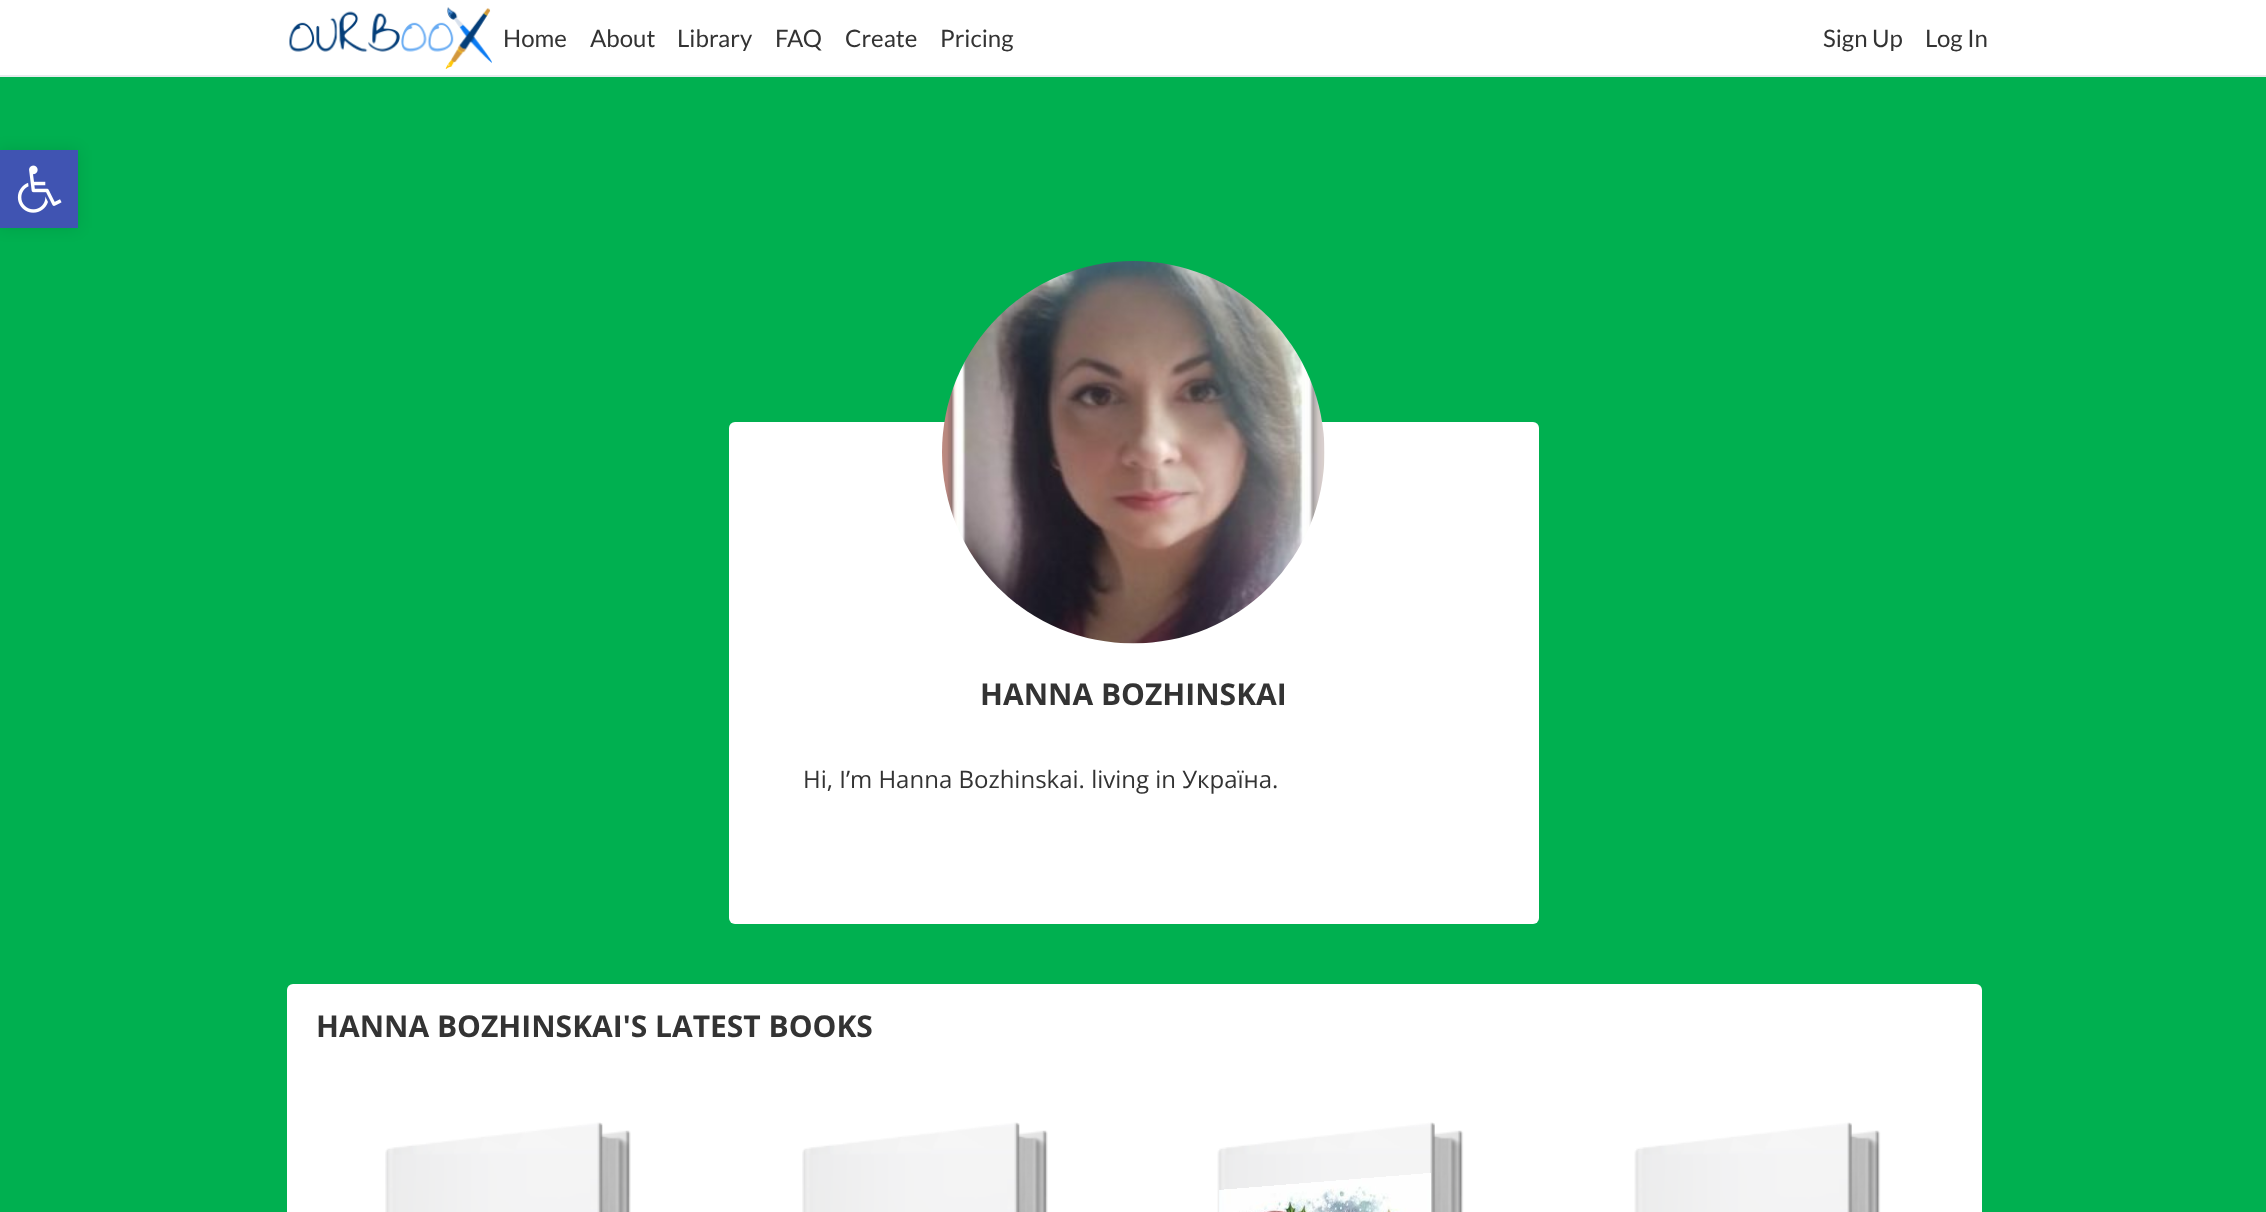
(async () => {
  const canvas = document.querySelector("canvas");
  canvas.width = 2266;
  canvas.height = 1212;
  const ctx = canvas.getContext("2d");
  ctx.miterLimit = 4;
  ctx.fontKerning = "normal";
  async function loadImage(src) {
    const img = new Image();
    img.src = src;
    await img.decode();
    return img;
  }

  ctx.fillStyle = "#ffffff";
  ctx.fillRect(0, 0, 2266, 1212);
  ctx.fillStyle = "#e7ebed";
  ctx.fillRect(0, 75, 2266, 2);
  ctx.drawImage(await loadImage("img/1.png"), 289, 7, 203, 62);
  ctx.fillStyle = "#00b050";
  ctx.fillRect(0, 77, 2266, 1135);
  ctx.fillStyle = "rgba(0, 0, 0, 0.1)";
  ctx.filter = "blur(7.5px)";
  ctx.beginPath();
  ctx.rect(0, 150, 78, 78);
  ctx.fill();
  ctx.filter = "none";
  ctx.fillStyle = "#4054b2";
  ctx.fillRect(0, 150, 78, 78);
  ctx.drawImage(await loadImage("img/2.png"), 17, 165, 45, 48);
  ctx.fillStyle = "#ffffff";
  ctx.beginPath();
  ctx.roundRect(729, 422, 810, 502, 6);
  ctx.fill();
  ctx.drawImage(await loadImage("img/3.png"), 942, 261, 383, 383);
  ctx.beginPath();
  ctx.roundRect(287, 984, 1695, 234, 6);
  ctx.fill();
  ctx.drawImage(await loadImage("img/4.png"), 385, 1122, 246, 90);
  ctx.drawImage(await loadImage("img/5.png"), 802, 1122, 246, 90);
  ctx.drawImage(await loadImage("img/6.png"), 1217, 1122, 247, 90);
  ctx.drawImage(await loadImage("img/7.png"), 1219, 1173, 212, 39);
  ctx.drawImage(await loadImage("img/6.png"), 1634, 1122, 247, 90);
  ctx.font = "24px Lato";
  ctx.fillStyle = "#333333";
  for (const [text, x, y] of [
    ["Home", 503, 47],
    ["About", 590, 47],
    ["Library", 677, 47],
    ["FAQ", 775, 47],
    ["Create", 845, 47],
    ["Pricing", 940, 47],
    ["Sign Up", 1823, 47],
    ["Log In", 1925, 47],
  ]) {
    ctx.fillText(text, x, y);
  }
  ctx.font = "bold 30px Open Sans";
  ctx.fillText("HANNA BOZHINSKAI", 980, 705);
  ctx.font = "24px Open Sans";
  ctx.fillText("Hi, I’m Hanna Bozhinskai. living in Україна.", 803, 788);
  ctx.font = "bold 30px Open Sans";
  ctx.fillText("HANNA BOZHINSKAI'S LATEST BOOKS", 316, 1037);
})();
